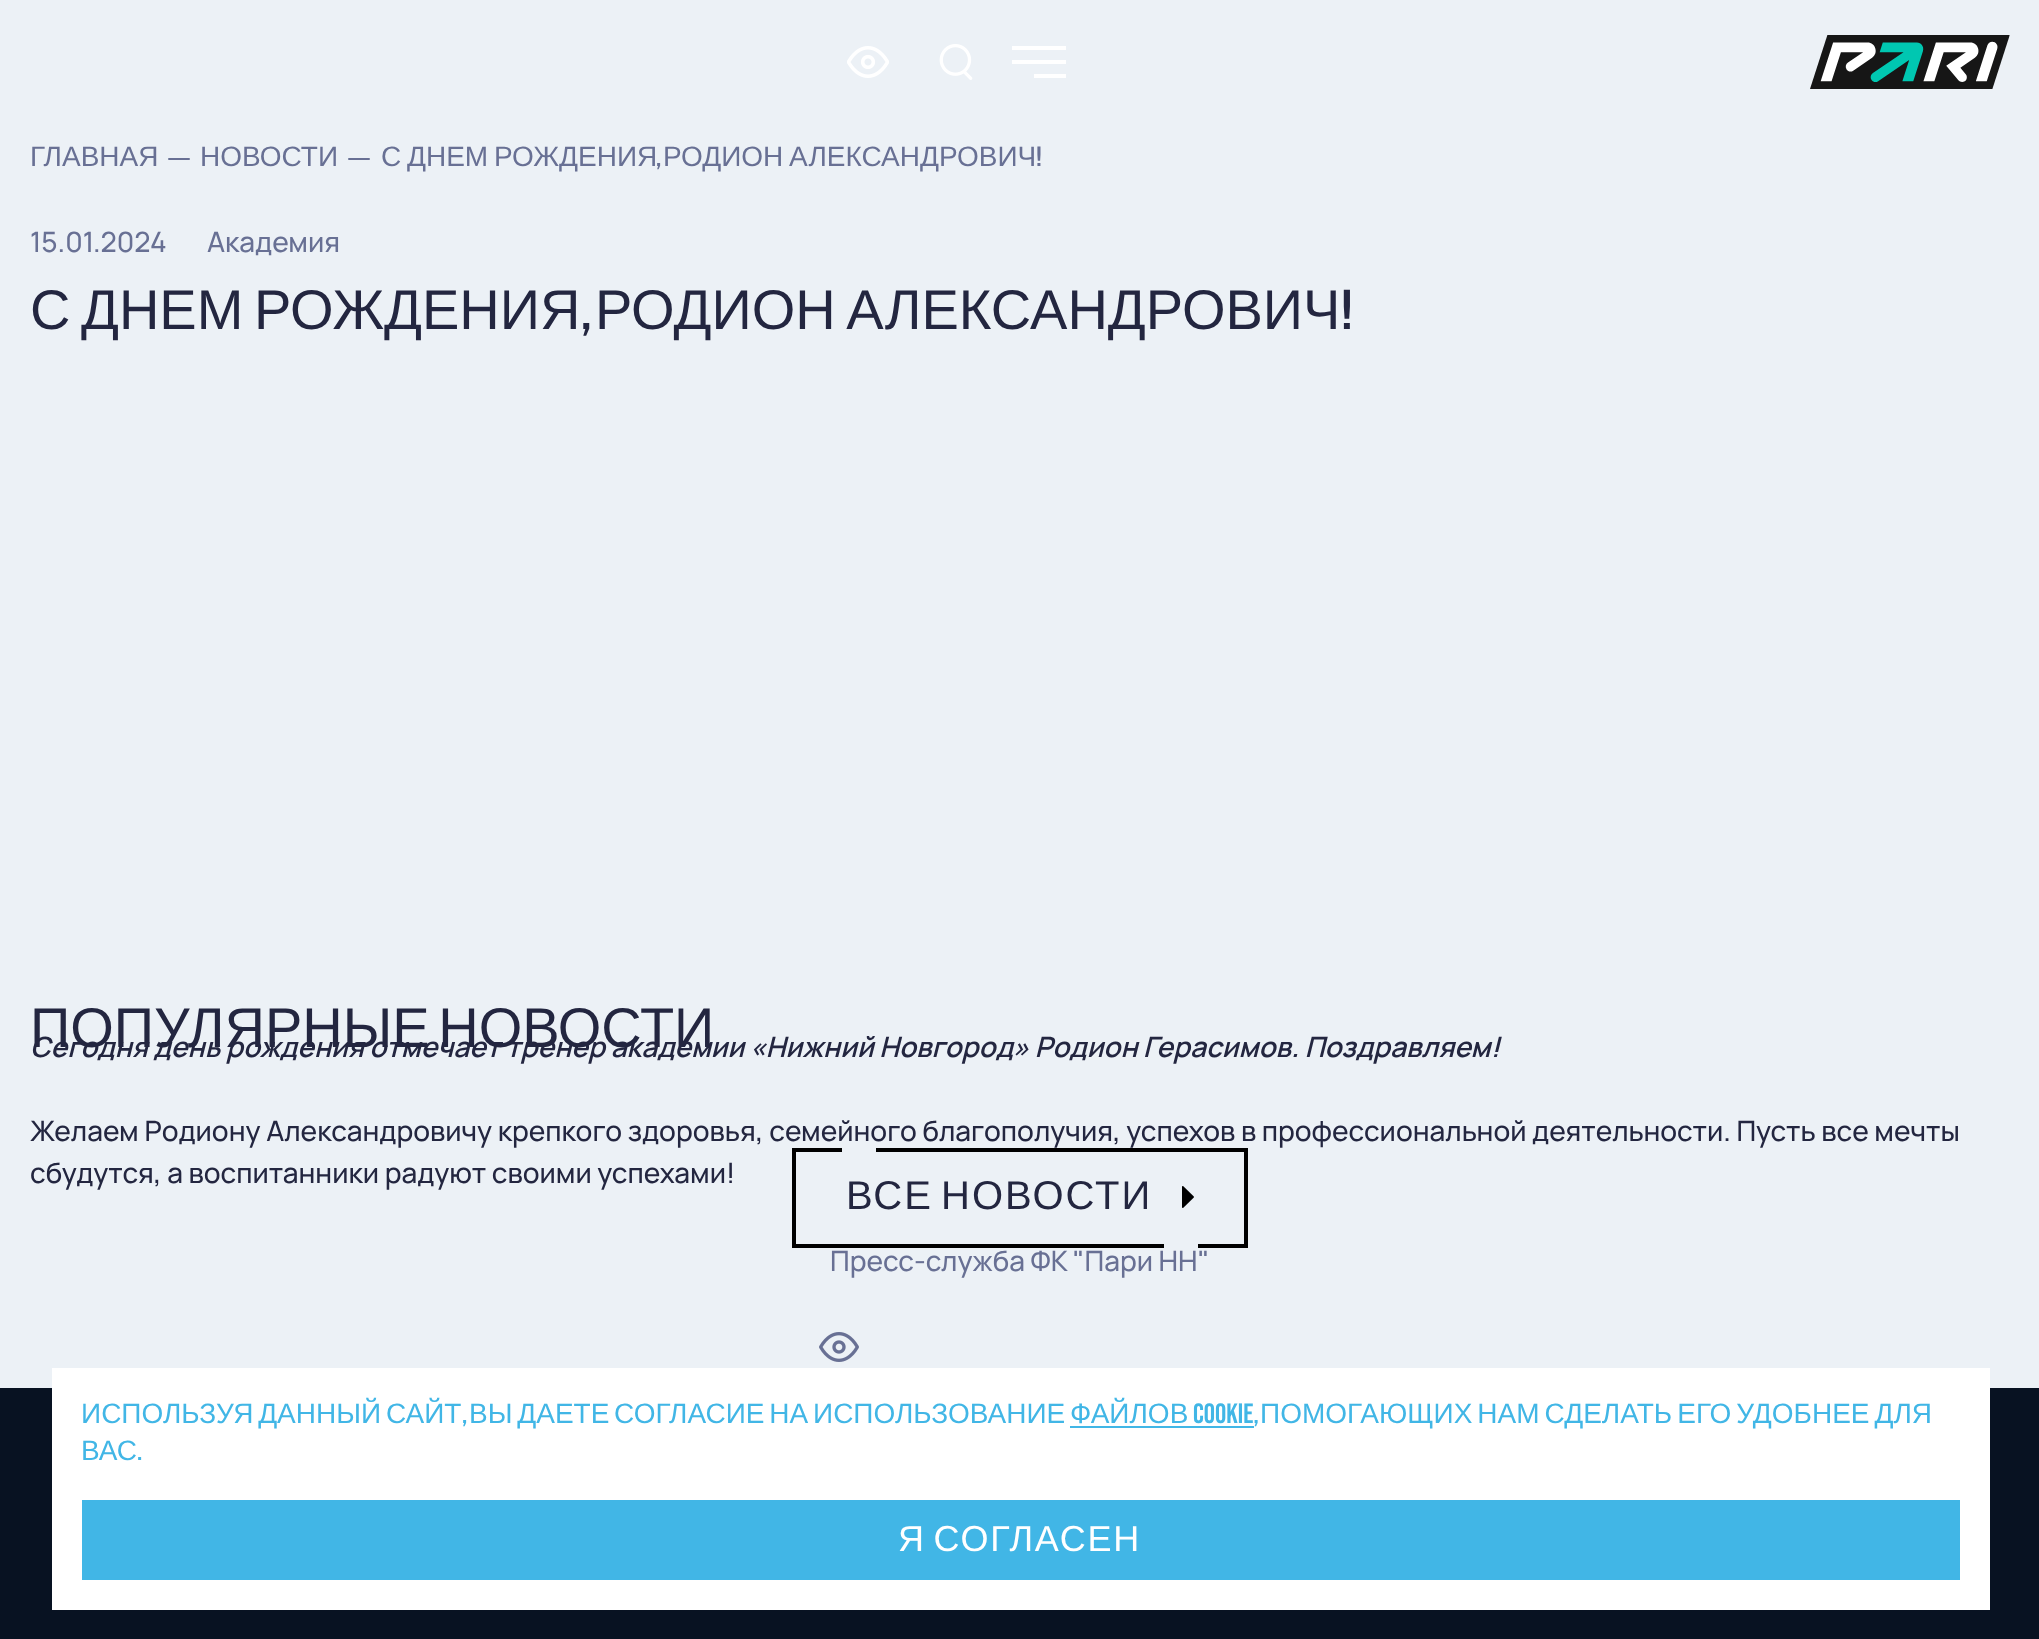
(async () => {
  const canvas = document.querySelector("canvas");
  canvas.width = 2039;
  canvas.height = 1639;
  const ctx = canvas.getContext("2d");
  ctx.miterLimit = 4;
  ctx.fontKerning = "normal";
  async function loadImage(src) {
    const img = new Image();
    img.src = src;
    await img.decode();
    return img;
  }
  let path;

  ctx.fillStyle = "#081222";
  ctx.fillRect(0, 0, 2039, 1639);
  ctx.fillStyle = "#ecf1f6";
  ctx.fillRect(0, 0, 2039, 1388);
  ctx.drawImage(await loadImage("img/1.png"), 847, 46, 42, 32);
  ctx.drawImage(await loadImage("img/2.png"), 939, 44, 34, 36);
  ctx.fillStyle = "#ffffff";
  path = new Path2D("M1066 50H1012V46H1066ZM1066 64H1012V60H1066ZM1066 78H1034V74H1066Z");
  ctx.fill(path);
  ctx.drawImage(await loadImage("img/3.png"), 1810, 35, 200, 54);
  ctx.fillStyle = "#687094";
  ctx.beginPath();
  ctx.roundRect(168, 158, 22, 2, 1);
  ctx.fill();
  ctx.beginPath();
  ctx.roundRect(348, 158, 22, 2, 1);
  ctx.fill();
  for (const [x, y, w, h, color] of [
    [1244, 1148, 4, 100, "#000000"],
    [792, 1148, 4, 100, "#000000"],
    [796, 1148, 46, 4, "#000000"],
    [876, 1148, 368, 4, "#000000"],
  ]) {
    ctx.fillStyle = color;
    ctx.fillRect(x, y, w, h);
  }
  ctx.drawImage(await loadImage("img/4.png"), 1182, 1186, 12, 22);
  ctx.fillRect(796, 1244, 368, 4);
  ctx.fillRect(1198, 1244, 46, 4);
  ctx.drawImage(await loadImage("img/5.png"), 819, 1332, 40, 30);
  for (const [x, y, w, h, color] of [
    [52, 1368, 1938, 242, "#ffffff"],
    [1070, 1426, 184, 2, "#41b6e6"],
    [82, 1500, 1878, 80, "#41b6e6"],
  ]) {
    ctx.fillStyle = color;
    ctx.fillRect(x, y, w, h);
  }
  ctx.font = "28px Liberation Sans";
  ctx.fillStyle = "#687094";
  ctx.fillText("ГЛАВНАЯ", 30, 166);
  ctx.fillText("НОВОСТИ", 200, 166);
  ctx.wordSpacing = "-2px";
  ctx.fillText("С ДНЕМ РОЖДЕНИЯ", 381, 166);
  ctx.wordSpacing = "0px";
  ctx.font = "28px Bebas Neue";
  ctx.fillText(",", 656, 166);
  ctx.wordSpacing = "-2px";
  ctx.font = "28px Liberation Sans";
  ctx.fillText("РОДИОН АЛЕКСАНДРОВИЧ", 663, 166);
  ctx.wordSpacing = "0px";
  ctx.font = "28px Bebas Neue";
  ctx.fillText("!", 1036, 166);
  ctx.font = "500 28px Manrope";
  ctx.fillText("15.01.2024", 30, 252);
  ctx.fillText("Академия", 207, 252);
  ctx.wordSpacing = "-5px";
  ctx.font = "56px Liberation Sans";
  ctx.fillStyle = "#232640";
  ctx.fillText("С ДНЕМ РОЖДЕНИЯ", 30, 329);
  ctx.wordSpacing = "0px";
  ctx.font = "56px Bebas Neue";
  ctx.fillText(",", 581, 329);
  ctx.wordSpacing = "-5px";
  ctx.font = "56px Liberation Sans";
  ctx.fillText("РОДИОН АЛЕКСАНДРОВИЧ", 595, 329);
  ctx.wordSpacing = "0px";
  ctx.font = "56px Bebas Neue";
  ctx.fillText("!", 1341, 329);
  ctx.letterSpacing = "2px";
  ctx.wordSpacing = "-5px";
  ctx.font = "40px Liberation Sans";
  ctx.fillText("ВСЕ НОВОСТИ", 846, 1209);
  ctx.letterSpacing = "0px";
  ctx.wordSpacing = "0px";
  ctx.font = "italic 600 28px Manrope";
  ctx.fillText("Сегодня день рождения отмечает тренер академии «Нижний Новгород» Родион Герасимов. Поздравляем!", 30, 1057);
  ctx.wordSpacing = "-7px";
  ctx.font = "56px Liberation Sans";
  ctx.fillText("ПОПУЛЯРНЫЕ НОВОСТИ", 30, 1047);
  ctx.wordSpacing = "0px";
  ctx.font = "500 28px Manrope";
  ctx.fillText("Желаем Родиону Александровичу крепкого здоровья, семейного благополучия, успехов в профессиональной деятельности. Пусть все мечты", 30, 1141);
  ctx.fillText("сбудутся, а воспитанники радуют своими успехами!", 30, 1183);
  ctx.fillStyle = "#687094";
  ctx.fillText("Пресс-служба ФК \"Пари НН\"", 830, 1271);
  ctx.wordSpacing = "-3px";
  ctx.font = "28px Liberation Sans";
  ctx.fillStyle = "#41b6e6";
  ctx.fillText("ИСПОЛЬЗУЯ ДАННЫЙ САЙТ", 81, 1423);
  ctx.wordSpacing = "0px";
  ctx.font = "28px Bebas Neue";
  ctx.fillText(",", 462, 1423);
  ctx.wordSpacing = "-3px";
  ctx.font = "28px Liberation Sans";
  ctx.fillText("ВЫ ДАЕТЕ СОГЛАСИЕ НА ИСПОЛЬЗОВАНИЕ", 469, 1423);
  ctx.wordSpacing = "0px";
  ctx.fillText("ФАЙЛОВ", 1070, 1423);
  ctx.font = "28px Bebas Neue";
  ctx.fillText("COOKIE,", 1193, 1423);
  ctx.wordSpacing = "-2.75px";
  ctx.font = "28px Liberation Sans";
  ctx.fillText("ПОМОГАЮЩИХ НАМ СДЕЛАТЬ ЕГО УДОБНЕЕ ДЛЯ", 1260, 1423);
  ctx.wordSpacing = "0px";
  ctx.fillText("ВАС", 81, 1460);
  ctx.font = "28px Bebas Neue";
  ctx.fillText(".", 137, 1460);
  ctx.letterSpacing = "1.75px";
  ctx.wordSpacing = "-4px";
  ctx.font = "36px Liberation Sans";
  ctx.fillStyle = "#ffffff";
  ctx.fillText("Я СОГЛАСЕН", 898, 1551);
})();
